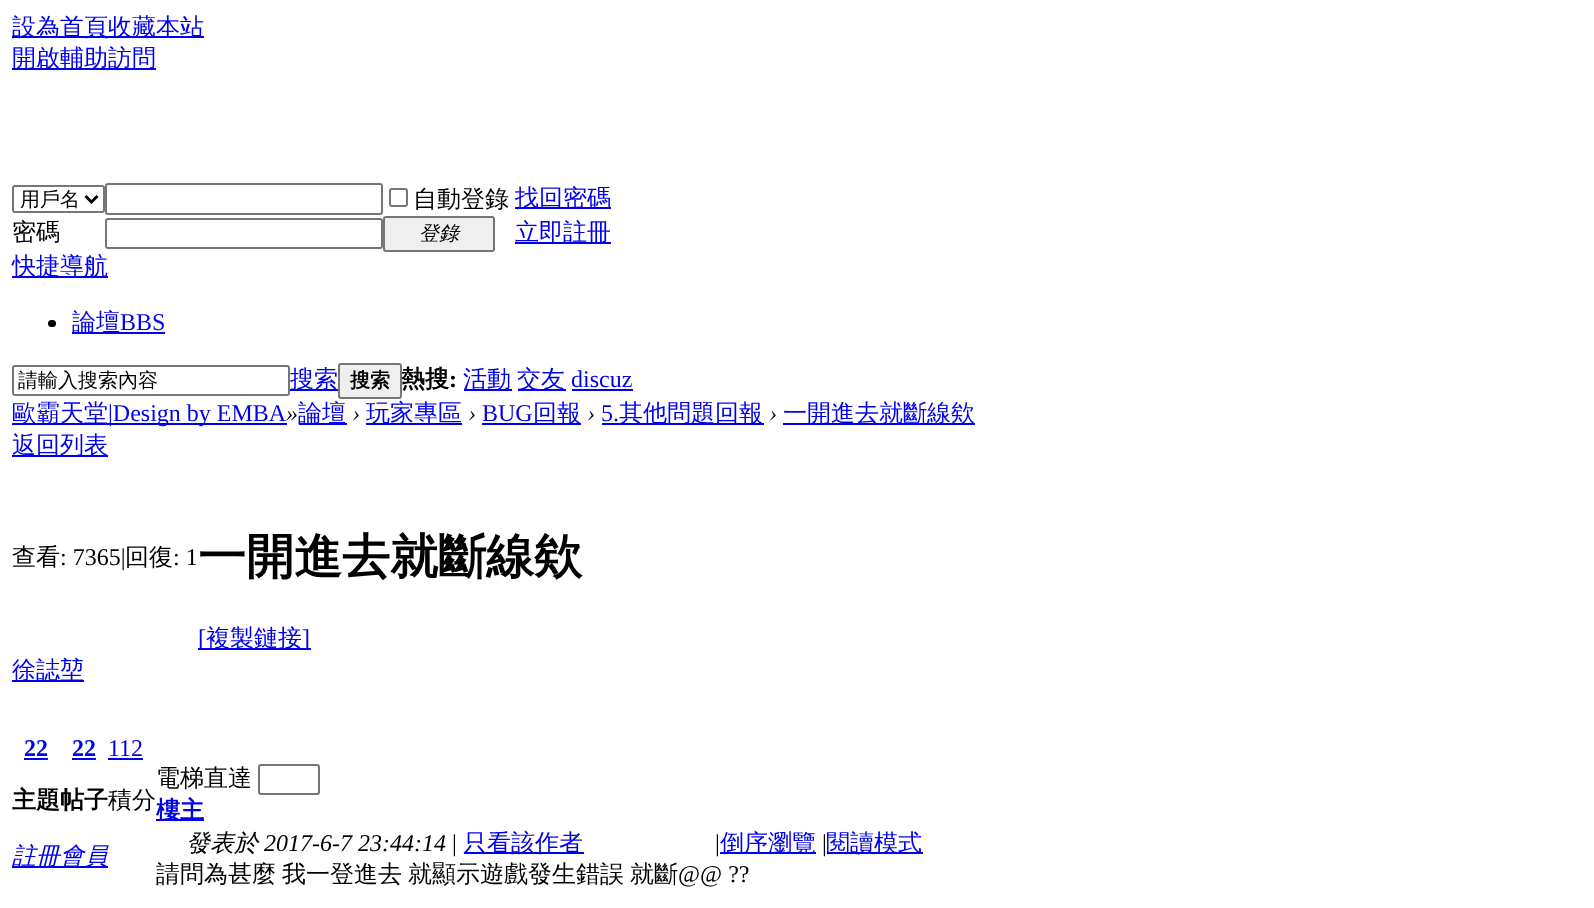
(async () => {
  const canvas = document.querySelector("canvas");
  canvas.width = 1594;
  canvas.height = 908;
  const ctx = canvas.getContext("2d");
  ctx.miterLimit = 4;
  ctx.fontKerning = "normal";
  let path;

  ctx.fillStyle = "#ffffff";
  ctx.fillRect(0, 0, 1594, 908);
  ctx.fillStyle = "#0000ee";
  ctx.fillRect(12, 36, 192, 2);
  ctx.fillRect(12, 68, 144, 2);
  ctx.beginPath();
  ctx.roundRect(13, 186, 91, 26, 2);
  ctx.strokeStyle = "#767676";
  ctx.lineWidth = 2;
  ctx.stroke();
  path = new Path2D("M85.5 196L91.5 202L97.5 196");
  ctx.strokeStyle = "#000000";
  ctx.lineWidth = 3;
  ctx.stroke(path);
  ctx.beginPath();
  ctx.roundRect(106, 184, 276, 30, 2);
  ctx.strokeStyle = "#767676";
  ctx.lineWidth = 2;
  ctx.stroke();
  ctx.beginPath();
  ctx.roundRect(390, 189, 17, 17, 2);
  ctx.stroke();
  ctx.fillRect(515, 207, 96, 2);
  ctx.beginPath();
  ctx.roundRect(106, 219, 276, 29, 2);
  ctx.stroke();
  ctx.fillStyle = "#efefef";
  ctx.beginPath();
  ctx.roundRect(384, 217, 110, 34, 2);
  ctx.fill();
  ctx.stroke();
  ctx.fillStyle = "#0000ee";
  ctx.fillRect(515, 242, 96, 2);
  ctx.fillRect(12, 276, 96, 2);
  ctx.fillStyle = "#000000";
  ctx.beginPath();
  ctx.roundRect(48, 320, 8, 7, 3.5);
  ctx.fill();
  ctx.fillStyle = "#0000ee";
  ctx.fillRect(72, 332, 93, 2);
  ctx.beginPath();
  ctx.roundRect(13, 366, 276, 29, 2);
  ctx.stroke();
  ctx.fillRect(290, 389, 48, 2);
  ctx.fillStyle = "#efefef";
  ctx.beginPath();
  ctx.roundRect(339, 364, 62, 34, 2);
  ctx.fill();
  ctx.stroke();
  for (const [x, y, w, h, color] of [
    [464, 389, 48, 2, "#0000ee"],
    [518, 389, 48, 2, "#0000ee"],
    [572, 389, 61, 2, "#0000ee"],
    [12, 423, 275, 2, "#0000ee"],
    [299, 423, 48, 2, "#0000ee"],
    [366, 423, 96, 2, "#0000ee"],
    [482, 423, 99, 2, "#0000ee"],
    [602, 423, 162, 2, "#0000ee"],
    [783, 423, 192, 2, "#0000ee"],
    [12, 455, 96, 2, "#0000ee"],
    [198, 648, 113, 2, "#0000ee"],
    [12, 680, 72, 2, "#0000ee"],
    [24, 758, 24, 2, "#0000ee"],
    [72, 758, 24, 2, "#0000ee"],
    [108, 758, 35, 2, "#0000ee"],
    [12, 866, 96, 2, "#0000ee"],
  ]) {
    ctx.fillStyle = color;
    ctx.fillRect(x, y, w, h);
  }
  ctx.beginPath();
  ctx.roundRect(259, 765, 60, 29, 2);
  ctx.stroke();
  for (const [x, y, w, h, color] of [
    [156, 819, 48, 2, "#0000ee"],
    [464, 852, 120, 2, "#0000ee"],
    [720, 852, 96, 2, "#0000ee"],
    [827, 852, 96, 2, "#0000ee"],
  ]) {
    ctx.fillStyle = color;
    ctx.fillRect(x, y, w, h);
  }
  ctx.font = "500 24px WenQuanYi Zen Hei";
  ctx.fillText("設為首頁收藏本站", 12, 35);
  ctx.fillText("開啟輔助訪問", 12, 66);
  ctx.font = "500 20px WenQuanYi Zen Hei";
  ctx.fillStyle = "#000000";
  ctx.fillText("用戶名", 20, 206);
  ctx.font = "500 24px WenQuanYi Zen Hei";
  ctx.fillText("自動登錄", 413, 207);
  ctx.fillStyle = "#0000ee";
  ctx.fillText("找回密碼", 515, 206);
  ctx.fillStyle = "#000000";
  ctx.fillText("密碼", 12, 240);
  ctx.font = "italic 500 20px WenQuanYi Zen Hei";
  ctx.fillText("登錄", 419, 240);
  ctx.font = "500 24px WenQuanYi Zen Hei";
  ctx.fillStyle = "#0000ee";
  for (const [text, x, y] of [
    ["立即註冊", 515, 240],
    ["快捷導航", 12, 274],
    ["論壇", 72, 330],
  ]) {
    ctx.fillText(text, x, y);
  }
  ctx.font = "24px Liberation Serif";
  ctx.fillText("BBS", 120, 330);
  ctx.font = "500 20px WenQuanYi Zen Hei";
  ctx.fillStyle = "#000000";
  ctx.fillText("請輸入搜索內容", 18, 387);
  ctx.font = "500 24px WenQuanYi Zen Hei";
  ctx.fillStyle = "#0000ee";
  ctx.fillText("搜索", 290, 387);
  ctx.font = "bold 20px WenQuanYi Zen Hei";
  ctx.fillStyle = "#000000";
  ctx.fillText("搜索", 350, 387);
  ctx.font = "bold 24px WenQuanYi Zen Hei";
  ctx.fillText("熱搜", 401, 387);
  ctx.font = "bold 24px Liberation Serif";
  ctx.fillText(":", 449, 387);
  ctx.font = "500 24px WenQuanYi Zen Hei";
  ctx.fillStyle = "#0000ee";
  ctx.fillText("活動", 463, 387);
  ctx.fillText("交友", 517, 387);
  ctx.font = "24px Liberation Serif";
  ctx.fillText("discuz", 571, 387);
  ctx.font = "500 24px WenQuanYi Zen Hei";
  ctx.fillText("歐霸天堂", 12, 421);
  ctx.font = "24px Liberation Serif";
  ctx.fillText("|Design by EMBA", 108, 421);
  ctx.font = "italic 24px Liberation Serif";
  ctx.fillStyle = "#000000";
  ctx.fillText("»", 286, 421);
  ctx.font = "500 24px WenQuanYi Zen Hei";
  ctx.fillStyle = "#0000ee";
  ctx.fillText("論壇", 298, 421);
  ctx.font = "italic 24px Liberation Serif";
  ctx.fillStyle = "#000000";
  ctx.fillText("›", 352, 421);
  ctx.font = "500 24px WenQuanYi Zen Hei";
  ctx.fillStyle = "#0000ee";
  ctx.fillText("玩家專區", 366, 421);
  ctx.font = "italic 24px Liberation Serif";
  ctx.fillStyle = "#000000";
  ctx.fillText("›", 468, 421);
  ctx.font = "24px Liberation Serif";
  ctx.fillStyle = "#0000ee";
  ctx.fillText("BUG", 482, 421);
  ctx.font = "500 24px WenQuanYi Zen Hei";
  ctx.fillText("回報", 533, 421);
  ctx.font = "italic 24px Liberation Serif";
  ctx.fillStyle = "#000000";
  ctx.fillText("›", 587, 421);
  ctx.font = "24px Liberation Serif";
  ctx.fillStyle = "#0000ee";
  ctx.fillText("5.", 601, 421);
  ctx.font = "500 24px WenQuanYi Zen Hei";
  ctx.fillText("其他問題回報", 619, 421);
  ctx.font = "italic 24px Liberation Serif";
  ctx.fillStyle = "#000000";
  ctx.fillText("›", 769, 421);
  ctx.font = "500 24px WenQuanYi Zen Hei";
  ctx.fillStyle = "#0000ee";
  ctx.fillText("一開進去就斷線欸", 783, 421);
  ctx.fillText("返回列表", 12, 453);
  ctx.fillStyle = "#000000";
  ctx.fillText("查看", 12, 565);
  ctx.font = "24px Liberation Serif";
  ctx.fillText(": 7365|", 60, 565);
  ctx.font = "500 24px WenQuanYi Zen Hei";
  ctx.fillText("回復", 125, 565);
  ctx.font = "24px Liberation Serif";
  ctx.fillText(": 1", 173, 565);
  ctx.font = "bold 48px WenQuanYi Zen Hei";
  ctx.fillText("一開進去就斷線欸", 198, 573);
  ctx.font = "24px Liberation Serif";
  ctx.fillStyle = "#0000ee";
  ctx.fillText("[", 198, 646);
  ctx.font = "500 24px WenQuanYi Zen Hei";
  ctx.fillText("複製鏈接", 206, 646);
  ctx.font = "24px Liberation Serif";
  ctx.fillText("]", 302, 646);
  ctx.font = "500 24px WenQuanYi Zen Hei";
  ctx.fillText("徐誌堃", 12, 678);
  ctx.font = "bold 24px Liberation Serif";
  ctx.fillText("22", 24, 756);
  ctx.font = "bold 24px WenQuanYi Zen Hei";
  ctx.fillStyle = "#000000";
  ctx.fillText("主題帖子", 12, 808);
  ctx.font = "bold 24px Liberation Serif";
  ctx.fillStyle = "#0000ee";
  ctx.fillText("22", 72, 756);
  ctx.font = "24px Liberation Serif";
  ctx.fillText("112", 108, 756);
  ctx.font = "500 24px WenQuanYi Zen Hei";
  ctx.fillStyle = "#000000";
  ctx.fillText("積分", 108, 808);
  ctx.font = "italic 500 24px WenQuanYi Zen Hei";
  ctx.fillStyle = "#0000ee";
  ctx.fillText("註冊會員", 12, 864);
  ctx.font = "500 24px WenQuanYi Zen Hei";
  ctx.fillStyle = "#000000";
  ctx.fillText("電梯直達", 156, 786);
  ctx.font = "bold 24px WenQuanYi Zen Hei";
  ctx.fillStyle = "#0000ee";
  ctx.fillText("樓主", 156, 818);
  ctx.font = "italic 500 24px WenQuanYi Zen Hei";
  ctx.fillStyle = "#000000";
  ctx.fillText("發表於", 186, 851);
  ctx.font = "italic 24px Liberation Serif";
  ctx.fillText("2017-6-7 23:44:14", 264, 851);
  ctx.font = "24px Liberation Serif";
  ctx.fillText("|", 452, 851);
  ctx.font = "500 24px WenQuanYi Zen Hei";
  ctx.fillStyle = "#0000ee";
  ctx.fillText("只看該作者", 463, 851);
  ctx.font = "24px Liberation Serif";
  ctx.fillStyle = "#000000";
  ctx.fillText("|", 715, 851);
  ctx.font = "500 24px WenQuanYi Zen Hei";
  ctx.fillStyle = "#0000ee";
  ctx.fillText("倒序瀏覽", 720, 851);
  ctx.font = "24px Liberation Serif";
  ctx.fillStyle = "#000000";
  ctx.fillText("|", 822, 851);
  ctx.font = "500 24px WenQuanYi Zen Hei";
  ctx.fillStyle = "#0000ee";
  ctx.fillText("閱讀模式", 826, 851);
  ctx.fillStyle = "#000000";
  for (const [text, x, y] of [
    ["請問為甚麼", 156, 882],
    ["我一登進去", 282, 882],
    ["就顯示遊戲發生錯誤", 408, 882],
    ["就斷", 630, 882],
  ]) {
    ctx.fillText(text, x, y);
  }
  ctx.font = "24px Liberation Serif";
  ctx.fillText("@@ ??", 678, 882);
})();
